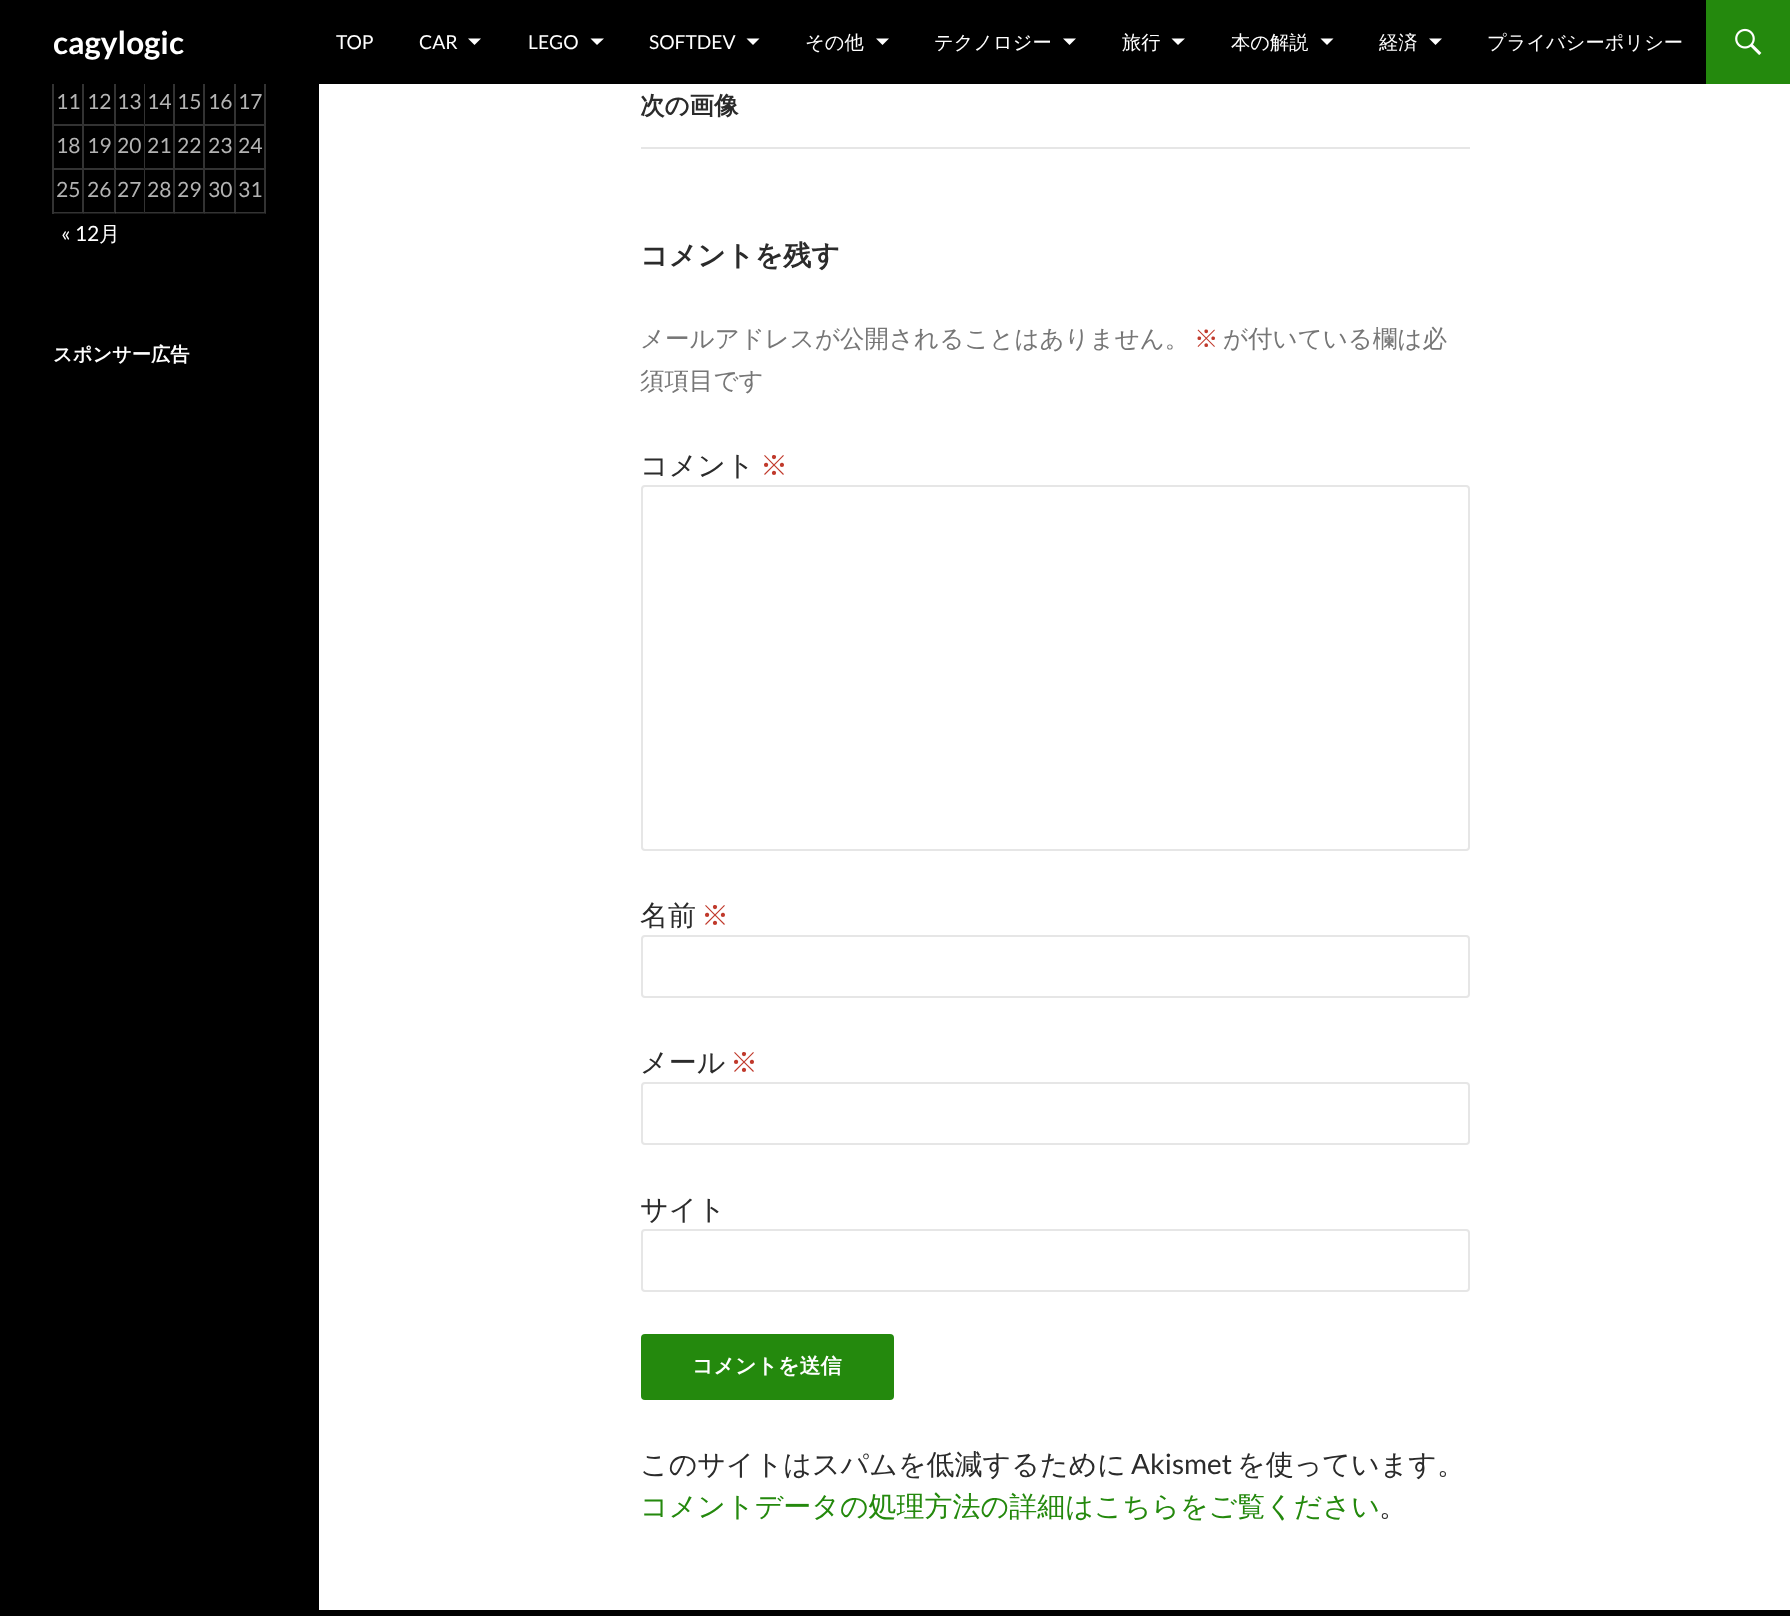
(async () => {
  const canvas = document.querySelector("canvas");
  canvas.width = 1790;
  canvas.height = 1616;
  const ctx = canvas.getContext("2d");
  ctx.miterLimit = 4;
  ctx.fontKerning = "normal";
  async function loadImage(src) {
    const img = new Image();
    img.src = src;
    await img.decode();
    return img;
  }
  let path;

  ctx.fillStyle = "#ffffff";
  ctx.fillRect(0, 0, 1790, 1616);
  ctx.fillStyle = "#000000";
  ctx.fillRect(0, 84, 319, 1526);
  ctx.fillStyle = "#333333";
  path = new Path2D("M52 214V-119L54-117V214Z");
  ctx.fill(path);
  path = new Path2D("M84 82V126L82 124V82Z");
  ctx.fill(path);
  path = new Path2D("M116 82V126L114 124V82Z");
  ctx.fill(path);
  path = new Path2D("M115.5 126H84V124H114ZM145 82V126L144 124V82Z");
  ctx.fill(path);
  path = new Path2D("M175 82V126L173 124V82Z");
  ctx.fill(path);
  path = new Path2D("M205 82V126L203 124V82Z");
  ctx.fill(path);
  path = new Path2D("M236 82V126L234 124V82Z");
  ctx.fill(path);
  path = new Path2D("M266 82V126L264 124V82Z");
  ctx.fill(path);
  ctx.fillStyle = "#000000";
  ctx.fillRect(0, 0, 1706, 84);
  ctx.fillStyle = "#ffffff";
  path = new Path2D("M468 38.5L474.5 45L481 38.5Z");
  ctx.fill(path);
  path = new Path2D("M590.5 38.5L597 45L604 38.5Z");
  ctx.fill(path);
  path = new Path2D("M746.5 38.5L753 45L759.5 38.5Z");
  ctx.fill(path);
  path = new Path2D("M876 38.5L882.5 45L889 38.5Z");
  ctx.fill(path);
  path = new Path2D("M1063 38.5L1069.5 45L1076 38.5Z");
  ctx.fill(path);
  path = new Path2D("M1171.5 38.5L1178 45L1185 38.5Z");
  ctx.fill(path);
  path = new Path2D("M1320.5 38.5L1327 45L1333.5 38.5Z");
  ctx.fill(path);
  path = new Path2D("M1429 38.5L1435.5 45L1442 38.5Z");
  ctx.fill(path);
  ctx.fillStyle = "#24890d";
  ctx.fillRect(1706, 0, 84, 84);
  ctx.drawImage(await loadImage("img/1.png"), 1735, 28, 27, 27);
  ctx.fillStyle = "rgba(255, 255, 255, 0.2)";
  path = new Path2D("M84 126H54V124H82Z");
  ctx.fill(path);
  path = new Path2D("M145 126H115.5V124H143.5Z");
  ctx.fill(path);
  path = new Path2D("M175 126H145V124H173Z");
  ctx.fill(path);
  path = new Path2D("M205 126H175V124H203Z");
  ctx.fill(path);
  path = new Path2D("M236 126H205V124H234.5Z");
  ctx.fill(path);
  path = new Path2D("M266 126H236V124H264Z");
  ctx.fill(path);
  ctx.fillStyle = "#333333";
  path = new Path2D("M84 126V170L82 168V126Z");
  ctx.fill(path);
  ctx.fillStyle = "rgba(255, 255, 255, 0.2)";
  path = new Path2D("M84 170H54V168H82Z");
  ctx.fill(path);
  ctx.fillStyle = "#333333";
  path = new Path2D("M116 126V170L114 168V126Z");
  ctx.fill(path);
  path = new Path2D("M115.5 170H84V168H114ZM145 126V170L144 168V126Z");
  ctx.fill(path);
  ctx.fillStyle = "rgba(255, 255, 255, 0.2)";
  path = new Path2D("M145 170H115.5V168H143.5Z");
  ctx.fill(path);
  ctx.fillStyle = "#333333";
  path = new Path2D("M175 126V170L173 168V126Z");
  ctx.fill(path);
  ctx.fillStyle = "rgba(255, 255, 255, 0.2)";
  path = new Path2D("M175 170H145V168H173Z");
  ctx.fill(path);
  ctx.fillStyle = "#333333";
  path = new Path2D("M205 126V170L203 168V126Z");
  ctx.fill(path);
  ctx.fillStyle = "rgba(255, 255, 255, 0.2)";
  path = new Path2D("M205 170H175V168H203Z");
  ctx.fill(path);
  ctx.fillStyle = "#333333";
  path = new Path2D("M236 126V170L234 168V126Z");
  ctx.fill(path);
  ctx.fillStyle = "rgba(255, 255, 255, 0.2)";
  path = new Path2D("M236 170H205V168H234.5Z");
  ctx.fill(path);
  ctx.fillStyle = "#333333";
  path = new Path2D("M266 126V170L264 168V126Z");
  ctx.fill(path);
  ctx.fillStyle = "rgba(255, 255, 255, 0.2)";
  path = new Path2D("M266 170H236V168H264Z");
  ctx.fill(path);
  ctx.fillStyle = "#333333";
  path = new Path2D("M84 170V214L82 212V170Z");
  ctx.fill(path);
  ctx.fillStyle = "rgba(255, 255, 255, 0.2)";
  path = new Path2D("M84 213.5H54V212H82Z");
  ctx.fill(path);
  ctx.fillStyle = "#333333";
  path = new Path2D("M116 170V214L114 212V170Z");
  ctx.fill(path);
  ctx.fillStyle = "rgba(255, 255, 255, 0.2)";
  path = new Path2D("M115.5 213.5H84V212H114Z");
  ctx.fill(path);
  ctx.fillStyle = "#333333";
  path = new Path2D("M145 170V214L144 212V170Z");
  ctx.fill(path);
  ctx.fillStyle = "rgba(255, 255, 255, 0.2)";
  path = new Path2D("M145 213.5H115.5V212H143.5Z");
  ctx.fill(path);
  ctx.fillStyle = "#333333";
  path = new Path2D("M175 170V214L173 212V170Z");
  ctx.fill(path);
  ctx.fillStyle = "rgba(255, 255, 255, 0.2)";
  path = new Path2D("M175 213.5H145V212H173Z");
  ctx.fill(path);
  ctx.fillStyle = "#333333";
  path = new Path2D("M205 170V214L203 212V170Z");
  ctx.fill(path);
  ctx.fillStyle = "rgba(255, 255, 255, 0.2)";
  path = new Path2D("M205 213.5H175V212H203Z");
  ctx.fill(path);
  ctx.fillStyle = "#333333";
  path = new Path2D("M236 170V214L234 212V170Z");
  ctx.fill(path);
  ctx.fillStyle = "rgba(255, 255, 255, 0.2)";
  path = new Path2D("M236 213.5H205V212H234.5Z");
  ctx.fill(path);
  ctx.fillStyle = "#333333";
  path = new Path2D("M266 170V214L264 212V170Z");
  ctx.fill(path);
  ctx.fillStyle = "rgba(255, 255, 255, 0.2)";
  path = new Path2D("M266 213.5H236V212H264Z");
  ctx.fill(path);
  ctx.fillStyle = "#e6e6e6";
  ctx.fillRect(641, 147, 829, 2);
  ctx.beginPath();
  ctx.roundRect(642, 486, 827, 364, 3);
  ctx.strokeStyle = "#e6e6e6";
  ctx.lineWidth = 2;
  ctx.stroke();
  ctx.beginPath();
  ctx.roundRect(642, 936, 827, 61, 3);
  ctx.stroke();
  ctx.beginPath();
  ctx.roundRect(642, 1083, 827, 61, 3);
  ctx.stroke();
  ctx.beginPath();
  ctx.roundRect(642, 1230, 827, 61, 3);
  ctx.stroke();
  ctx.fillStyle = "#24890d";
  ctx.beginPath();
  ctx.roundRect(641, 1334, 253, 66, 4);
  ctx.fill();
  ctx.fillStyle = "#000000";
  ctx.fillRect(0, 1610, 1790, 6);
  ctx.font = "bold 31.5px Lato";
  ctx.fillStyle = "#ffffff";
  ctx.fillText("cagylogic", 53, 54);
  ctx.font = "19.25px Lato";
  for (const [text, x, y] of [
    ["TOP", 336, 49],
    ["CAR", 419, 49],
    ["LEGO", 528, 49],
    ["SOFTDEV", 649, 49],
  ]) {
    ctx.fillText(text, x, y);
  }
  ctx.font = "500 19.25px WenQuanYi Zen Hei";
  for (const [text, x, y] of [
    ["その他", 805, 49],
    ["テクノロジー", 934, 49],
    ["旅行", 1122, 49],
    ["本の解説", 1231, 49],
    ["経済", 1379, 49],
    ["プライバシーポリシー", 1487, 49],
  ]) {
    ctx.fillText(text, x, y);
  }
  ctx.font = "21px Lato";
  ctx.fillStyle = "#b3b3b3";
  for (const [text, x, y] of [
    ["11", 56, 109],
    ["12", 87, 109],
    ["13", 117, 109],
    ["14", 147, 109],
    ["15", 177, 109],
    ["16", 208, 109],
    ["17", 238, 109],
    ["18", 56, 153],
    ["19", 87, 153],
    ["20", 117, 153],
    ["21", 147, 153],
    ["22", 177, 153],
    ["23", 208, 153],
    ["24", 238, 153],
    ["25", 56, 197],
    ["26", 87, 197],
    ["27", 117, 197],
    ["28", 147, 197],
    ["29", 177, 197],
    ["30", 208, 197],
    ["31", 238, 197],
  ]) {
    ctx.fillText(text, x, y);
  }
  ctx.fillStyle = "#ffffff";
  ctx.fillText("« 12", 61, 241);
  ctx.font = "500 21px WenQuanYi Zen Hei";
  ctx.fillText("月", 99, 241);
  ctx.font = "bold 19.25px WenQuanYi Zen Hei";
  ctx.fillText("スポンサー広告", 53, 361);
  ctx.font = "bold 24.5px WenQuanYi Zen Hei";
  ctx.fillStyle = "#2b2b2b";
  ctx.fillText("次の画像", 640, 114);
  ctx.font = "bold 28px WenQuanYi Zen Hei";
  ctx.fillText("コメントを残す", 640, 265);
  ctx.font = "500 24.5px WenQuanYi Zen Hei";
  ctx.fillStyle = "#767676";
  ctx.fillText("メールアドレスが公開されることはありません。", 640, 347);
  ctx.fillStyle = "#c0392b";
  ctx.fillText("※", 1194, 347);
  ctx.fillStyle = "#767676";
  ctx.fillText("が付いている欄は必", 1223, 347);
  ctx.fillText("須項目です", 640, 389);
  ctx.font = "500 28px WenQuanYi Zen Hei";
  ctx.fillStyle = "#2b2b2b";
  ctx.fillText("コメント", 640, 475);
  ctx.fillStyle = "#c0392b";
  ctx.fillText("※", 760, 475);
  ctx.fillStyle = "#2b2b2b";
  ctx.fillText("名前", 640, 925);
  ctx.fillStyle = "#c0392b";
  ctx.fillText("※", 701, 925);
  ctx.fillStyle = "#2b2b2b";
  ctx.fillText("メール", 640, 1072);
  ctx.fillStyle = "#c0392b";
  ctx.fillText("※", 730, 1072);
  ctx.fillStyle = "#2b2b2b";
  ctx.fillText("サイト", 640, 1219);
  ctx.font = "bold 21px WenQuanYi Zen Hei";
  ctx.fillStyle = "#ffffff";
  ctx.fillText("コメントを送信", 692, 1373);
  ctx.font = "500 28px WenQuanYi Zen Hei";
  ctx.fillStyle = "#2b2b2b";
  ctx.fillText("このサイトはスパムを低減するために", 640, 1474);
  ctx.font = "28px Lato";
  ctx.fillText("Akismet", 1131, 1474);
  ctx.font = "500 28px WenQuanYi Zen Hei";
  ctx.fillText("を使っています。", 1237, 1474);
  ctx.fillStyle = "#24890d";
  ctx.fillText("コメントデータの処理方法の詳細はこちらをご覧ください", 640, 1516);
  ctx.fillStyle = "#2b2b2b";
  ctx.fillText("。", 1379, 1516);
})();
